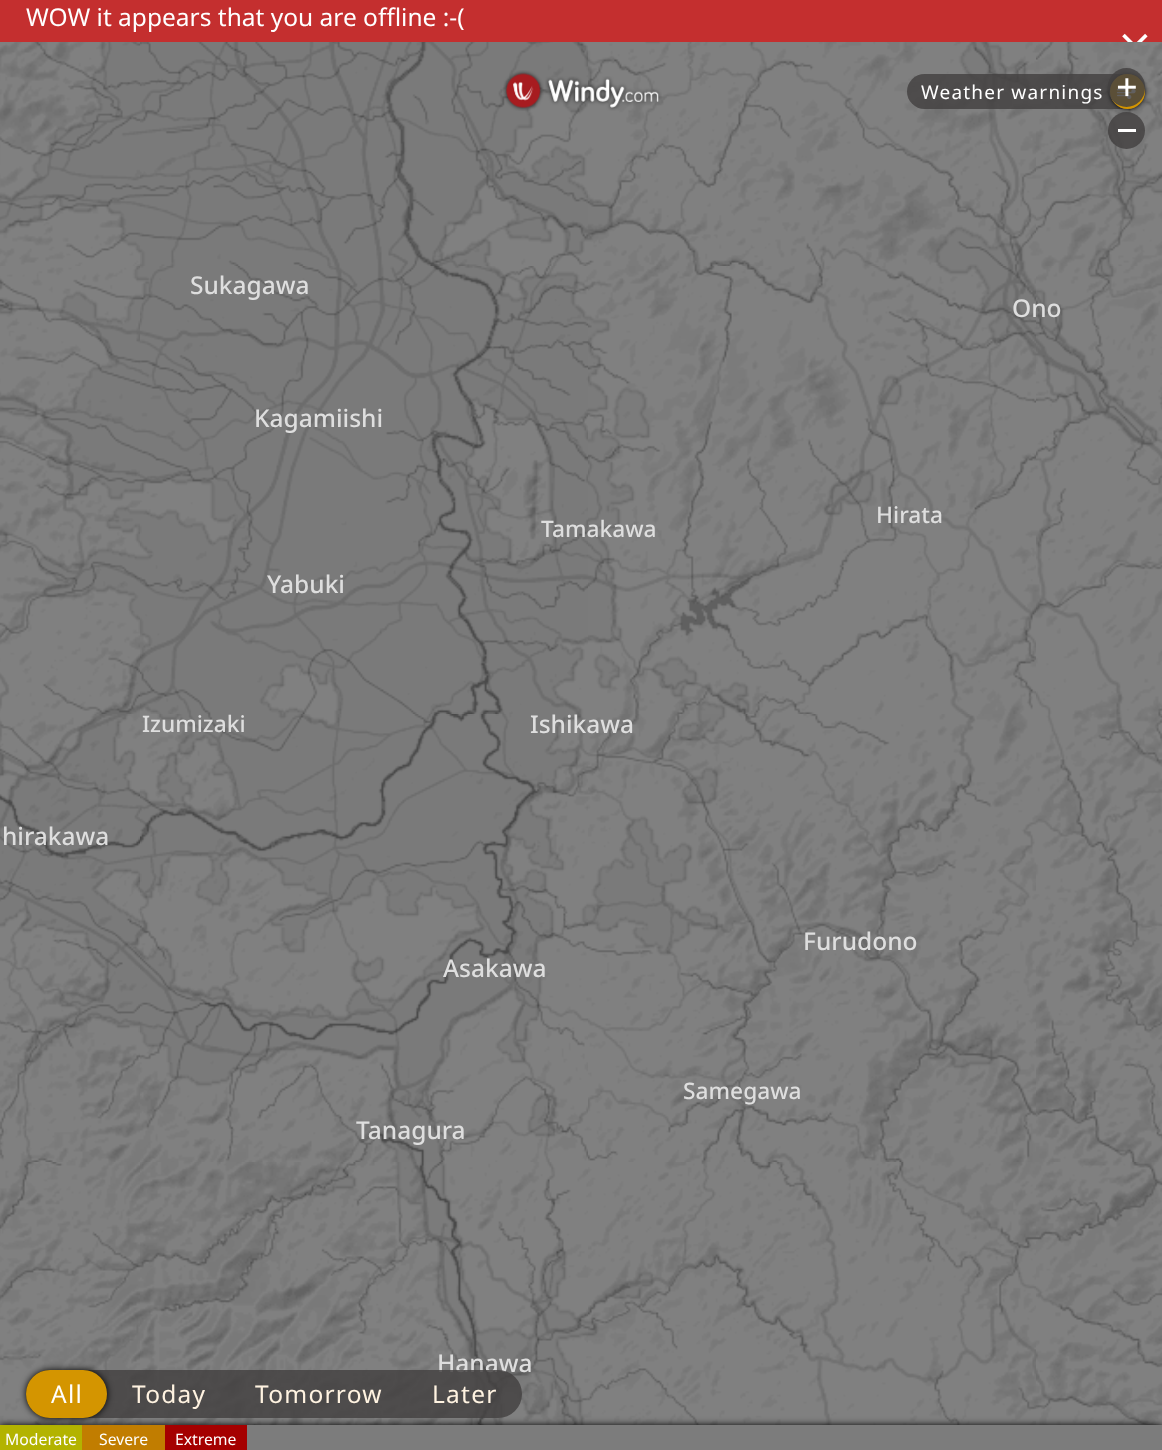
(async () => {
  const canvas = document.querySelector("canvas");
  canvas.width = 1162;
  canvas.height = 1450;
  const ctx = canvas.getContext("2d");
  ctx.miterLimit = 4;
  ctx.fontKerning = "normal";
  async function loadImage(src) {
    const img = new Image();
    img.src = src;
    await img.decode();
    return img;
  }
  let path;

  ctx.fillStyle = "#808080";
  ctx.fillRect(0, 0, 1162, 1450);
  ctx.fillStyle = "#c42f2f";
  ctx.fillRect(0, 0, 1162, 42);
  ctx.drawImage(await loadImage("img/1.png"), 1122, 33, 26, 9);
  ctx.drawImage(await loadImage("img/7.png"), 140, 42, 448, 224);
  ctx.drawImage(await loadImage("img/2.png"), 503, 70, 41, 41);
  ctx.drawImage(await loadImage("img/8.png"), 588, 42, 448, 224);
  ctx.drawImage(await loadImage("img/3.png"), 545, 76, 117, 35);
  ctx.drawImage(await loadImage("img/9.png"), 1036, 42, 126, 224);
  ctx.fillStyle = "rgba(68, 65, 65, 0.84)";
  ctx.beginPath();
  ctx.roundRect(907, 74, 238, 35, 17.5);
  ctx.fill();
  ctx.save();
  path = new Path2D("M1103 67H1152V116H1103ZM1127.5 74C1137 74 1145 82 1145 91.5C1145 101 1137 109 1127.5 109C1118 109 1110 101 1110 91.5C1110 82 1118 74 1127.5 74Z");
  ctx.clip(path, "evenodd");
  ctx.fillStyle = "#000000";
  ctx.filter = "blur(2px)";
  ctx.beginPath();
  ctx.roundRect(1110, 74, 35, 35, 17.5);
  ctx.fill();
  ctx.filter = "none";
  ctx.restore();
  ctx.fillStyle = "#d49500";
  ctx.beginPath();
  ctx.arc(1127.5, 91.5, 17.5, 0, Math.PI * 2);
  ctx.fill();
  ctx.drawImage(await loadImage("img/4.png"), 1116, 88, 20, 12);
  ctx.fillStyle = "rgba(68, 65, 65, 0.84)";
  ctx.beginPath();
  ctx.roundRect(1108, 68, 37, 39, 18.5);
  ctx.fill();
  ctx.drawImage(await loadImage("img/5.png"), 1117, 78, 19, 19);
  ctx.beginPath();
  ctx.arc(1126.5, 130.5, 18.5, 0, Math.PI * 2);
  ctx.fill();
  ctx.fillStyle = "#ffffff";
  ctx.fillRect(1118, 129, 18, 3);
  ctx.drawImage(await loadImage("img/6.png"), 0, 42, 140, 224);
  ctx.drawImage(await loadImage("img/10.png"), 0, 266, 140, 448);
  ctx.drawImage(await loadImage("img/11.png"), 140, 266, 448, 448);
  ctx.drawImage(await loadImage("img/12.png"), 588, 266, 448, 448);
  ctx.drawImage(await loadImage("img/13.png"), 1036, 266, 126, 448);
  ctx.drawImage(await loadImage("img/14.png"), 0, 714, 140, 448);
  ctx.drawImage(await loadImage("img/15.png"), 140, 714, 448, 448);
  ctx.drawImage(await loadImage("img/16.png"), 588, 714, 448, 448);
  ctx.drawImage(await loadImage("img/17.png"), 1036, 714, 126, 448);
  ctx.drawImage(await loadImage("img/18.png"), 0, 1162, 140, 263);
  ctx.drawImage(await loadImage("img/19.png"), 140, 1162, 448, 263);
  ctx.drawImage(await loadImage("img/20.png"), 588, 1162, 448, 263);
  ctx.drawImage(await loadImage("img/21.png"), 1036, 1162, 126, 263);
  ctx.fillStyle = "#000000";
  ctx.filter = "blur(3.5px)";
  ctx.beginPath();
  ctx.rect(0, 1425, 1162, 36);
  ctx.fill();
  ctx.filter = "none";
  for (const [x, y, w, h, color] of [
    [247, 1425, 915, 25, "#7c7c7c"],
    [0, 1425, 82, 25, "#b3b300"],
    [82, 1425, 83, 25, "#c17d00"],
    [165, 1425, 82, 25, "#a50000"],
  ]) {
    ctx.fillStyle = color;
    ctx.fillRect(x, y, w, h);
  }
  ctx.font = "24.5px Noto Sans";
  ctx.fillStyle = "#ffffff";
  ctx.fillText("WOW it appears that you are offline :-(", 26, 26);
  ctx.letterSpacing = "1.2px";
  ctx.font = "19px Noto Sans";
  ctx.fillText("Weather warnings", 921, 99);
  ctx.letterSpacing = "0px";
  ctx.font = "500 24.5px Noto Sans";
  ctx.fillStyle = "#dedede";
  for (const [text, x, y] of [
    ["Sukagawa", 190, 294],
    ["Kagamiishi", 254, 427],
    ["Yabuki", 267, 593],
    ["Ono", 1012, 317],
  ]) {
    ctx.fillText(text, x, y);
  }
  ctx.font = "500 22.75px Noto Sans";
  ctx.fillText("Hirata", 876, 523);
  ctx.fillText("Tamakawa", 541, 537);
  ctx.font = "500 24.5px Noto Sans";
  ctx.fillText("hirakawa", 2, 845);
  ctx.font = "500 22.75px Noto Sans";
  ctx.fillText("Izumizaki", 142, 732);
  ctx.font = "500 24.5px Noto Sans";
  for (const [text, x, y] of [
    ["Ishikawa", 530, 733],
    ["Asakawa", 443, 977],
    ["Tanagura", 356, 1139],
    ["Furudono", 803, 950],
  ]) {
    ctx.fillText(text, x, y);
  }
  ctx.font = "500 22.75px Noto Sans";
  ctx.fillText("Samegawa", 683, 1099);
  ctx.font = "500 24.5px Noto Sans";
  ctx.fillText("Hanawa", 437, 1372);
  ctx.fillStyle = "rgba(68, 65, 65, 0.84)";
  ctx.beginPath();
  ctx.roundRect(26, 1370, 496, 48, 24);
  ctx.fill();
  ctx.fillStyle = "#000000";
  ctx.filter = "blur(3.5px)";
  ctx.beginPath();
  ctx.roundRect(26, 1370, 81, 48, 24);
  ctx.fill();
  ctx.filter = "none";
  ctx.fillStyle = "#d49500";
  ctx.beginPath();
  ctx.roundRect(26, 1370, 81, 48, 24);
  ctx.fill();
  ctx.letterSpacing = "1.25px";
  ctx.font = "24.5px Noto Sans";
  ctx.fillStyle = "#ffffff";
  ctx.fillText("All", 51, 1403);
  ctx.fillStyle = "#fff3e1";
  for (const [text, x, y] of [
    ["Today", 132, 1403],
    ["Tomorrow", 255, 1403],
    ["Later", 432, 1403],
  ]) {
    ctx.fillText(text, x, y);
  }
  ctx.letterSpacing = "0px";
  ctx.font = "15.75px Noto Sans";
  ctx.fillStyle = "#ffffff";
  for (const [text, x, y] of [
    ["Moderate", 5, 1445],
    ["Severe", 99, 1445],
    ["Extreme", 175, 1445],
  ]) {
    ctx.fillText(text, x, y);
  }
})();
